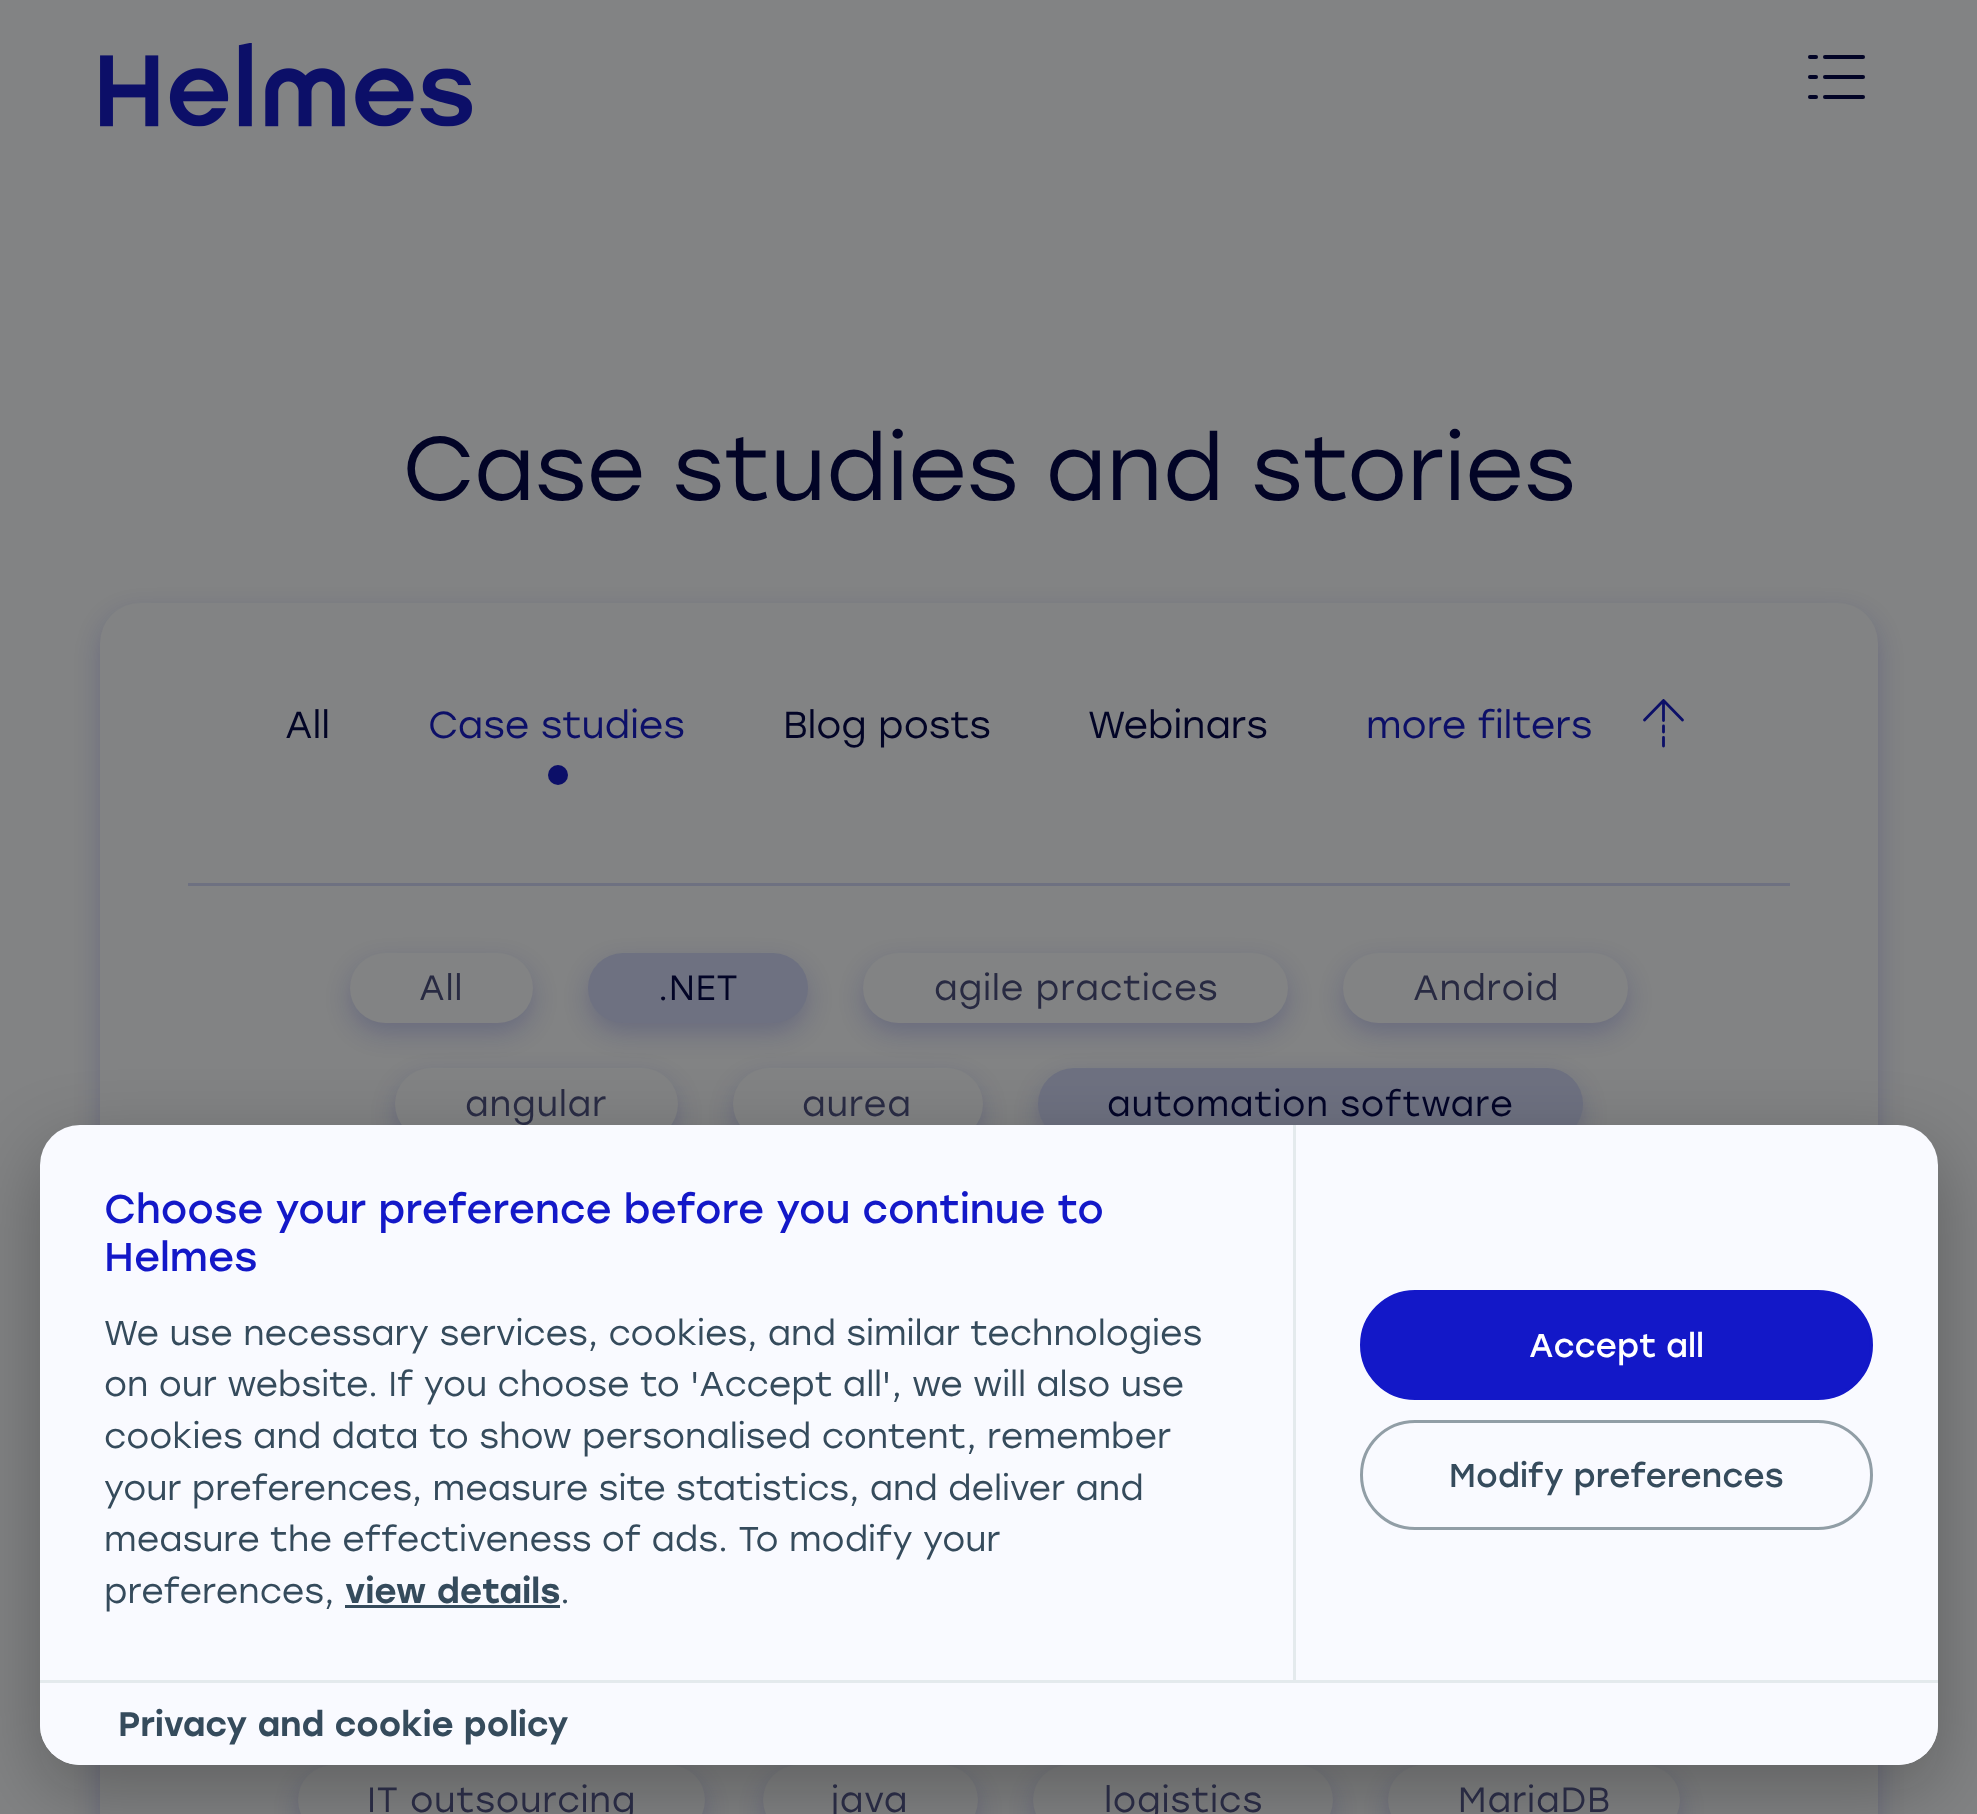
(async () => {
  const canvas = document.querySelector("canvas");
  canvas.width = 1977;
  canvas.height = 1814;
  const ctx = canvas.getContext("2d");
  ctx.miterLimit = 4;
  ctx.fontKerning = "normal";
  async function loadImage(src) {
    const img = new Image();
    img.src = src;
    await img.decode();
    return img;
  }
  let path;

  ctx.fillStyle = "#828384";
  ctx.fillRect(0, 0, 1977, 1814);
  ctx.drawImage(await loadImage("img/1.png"), 100, 43, 372, 84);
  ctx.fillStyle = "#020426";
  ctx.beginPath();
  ctx.roundRect(1808, 55, 10, 4, 2);
  ctx.fill();
  ctx.beginPath();
  ctx.roundRect(1823, 55, 42, 4, 2);
  ctx.fill();
  ctx.beginPath();
  ctx.roundRect(1808, 75, 10, 4, 2);
  ctx.fill();
  ctx.beginPath();
  ctx.roundRect(1823, 75, 42, 4, 2);
  ctx.fill();
  ctx.beginPath();
  ctx.roundRect(1808, 95, 10, 4, 2);
  ctx.fill();
  ctx.beginPath();
  ctx.roundRect(1823, 95, 42, 4, 2);
  ctx.fill();
  ctx.fillStyle = "rgba(12, 15, 104, 0.2)";
  ctx.filter = "blur(12.5px)";
  ctx.beginPath();
  ctx.roundRect(100, 613, 1778, 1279, 40);
  ctx.fill();
  ctx.filter = "none";
  ctx.fillStyle = "#828384";
  ctx.beginPath();
  ctx.roundRect(100, 603, 1778, 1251, 40);
  ctx.fill();
  ctx.fillStyle = "#6e7181";
  ctx.fillRect(188, 883, 1602, 3);
  ctx.fillStyle = "#0c0f68";
  ctx.beginPath();
  ctx.arc(558, 775, 10, 0, Math.PI * 2);
  ctx.fill();
  path = new Path2D("M1663.5 700.5L1644.5 720M1663.5 746V737.5M1663.5 702V720.5M1663.5 732V726M1682.5 720L1663.5 700.5");
  ctx.strokeStyle = "#0c0f68";
  ctx.lineWidth = 2.8;
  ctx.lineCap = "round";
  ctx.stroke(path);
  ctx.fillStyle = "rgba(12, 15, 104, 0.2)";
  ctx.filter = "blur(12.5px)";
  ctx.beginPath();
  ctx.roundRect(350, 963, 183, 70, 35);
  ctx.fill();
  ctx.filter = "none";
  ctx.fillStyle = "#828384";
  ctx.beginPath();
  ctx.roundRect(350, 953, 183, 70, 35);
  ctx.fill();
  ctx.fillStyle = "rgba(12, 15, 104, 0.2)";
  ctx.filter = "blur(12.5px)";
  ctx.beginPath();
  ctx.roundRect(588, 963, 220, 70, 35);
  ctx.fill();
  ctx.filter = "none";
  ctx.fillStyle = "#6e7181";
  ctx.beginPath();
  ctx.roundRect(588, 953, 220, 70, 35);
  ctx.fill();
  ctx.fillStyle = "rgba(12, 15, 104, 0.2)";
  ctx.filter = "blur(12.5px)";
  ctx.beginPath();
  ctx.roundRect(863, 963, 425, 70, 35);
  ctx.fill();
  ctx.filter = "none";
  ctx.fillStyle = "#828384";
  ctx.beginPath();
  ctx.roundRect(863, 953, 425, 70, 35);
  ctx.fill();
  ctx.fillStyle = "rgba(12, 15, 104, 0.2)";
  ctx.filter = "blur(12.5px)";
  ctx.beginPath();
  ctx.roundRect(1343, 963, 285, 70, 35);
  ctx.fill();
  ctx.filter = "none";
  ctx.fillStyle = "#828384";
  ctx.beginPath();
  ctx.roundRect(1343, 953, 285, 70, 35);
  ctx.fill();
  ctx.fillStyle = "rgba(12, 15, 104, 0.2)";
  ctx.filter = "blur(12.5px)";
  ctx.beginPath();
  ctx.roundRect(395, 1078, 283, 72, 36);
  ctx.fill();
  ctx.filter = "none";
  ctx.fillStyle = "#828384";
  ctx.beginPath();
  ctx.roundRect(395, 1068, 283, 72, 36);
  ctx.fill();
  ctx.fillStyle = "rgba(12, 15, 104, 0.2)";
  ctx.filter = "blur(12.5px)";
  ctx.beginPath();
  ctx.roundRect(733, 1078, 250, 72, 36);
  ctx.fill();
  ctx.filter = "none";
  ctx.fillStyle = "#828384";
  ctx.beginPath();
  ctx.roundRect(733, 1068, 250, 72, 36);
  ctx.fill();
  ctx.fillStyle = "rgba(12, 15, 104, 0.2)";
  ctx.filter = "blur(12.5px)";
  ctx.beginPath();
  ctx.roundRect(1038, 1078, 545, 72, 36);
  ctx.fill();
  ctx.filter = "none";
  ctx.fillStyle = "#6e7181";
  ctx.beginPath();
  ctx.roundRect(1038, 1068, 545, 72, 36);
  ctx.fill();
  ctx.fillStyle = "rgba(12, 15, 104, 0.2)";
  ctx.filter = "blur(12.5px)";
  ctx.beginPath();
  ctx.roundRect(298, 1775, 407, 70, 35);
  ctx.fill();
  ctx.filter = "none";
  ctx.fillStyle = "#828384";
  ctx.beginPath();
  ctx.roundRect(298, 1765, 407, 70, 35);
  ctx.fill();
  ctx.fillStyle = "rgba(12, 15, 104, 0.2)";
  ctx.filter = "blur(12.5px)";
  ctx.beginPath();
  ctx.roundRect(763, 1775, 215, 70, 35);
  ctx.fill();
  ctx.filter = "none";
  ctx.fillStyle = "#828384";
  ctx.beginPath();
  ctx.roundRect(763, 1765, 215, 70, 35);
  ctx.fill();
  ctx.fillStyle = "rgba(12, 15, 104, 0.2)";
  ctx.filter = "blur(12.5px)";
  ctx.beginPath();
  ctx.roundRect(1033, 1775, 300, 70, 35);
  ctx.fill();
  ctx.filter = "none";
  ctx.fillStyle = "#828384";
  ctx.beginPath();
  ctx.roundRect(1033, 1765, 300, 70, 35);
  ctx.fill();
  ctx.fillStyle = "rgba(12, 15, 104, 0.2)";
  ctx.filter = "blur(12.5px)";
  ctx.beginPath();
  ctx.roundRect(1388, 1775, 292, 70, 35);
  ctx.fill();
  ctx.filter = "none";
  ctx.fillStyle = "#828384";
  ctx.beginPath();
  ctx.roundRect(1388, 1765, 292, 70, 35);
  ctx.fill();
  ctx.fillStyle = "rgba(2, 2, 3, 0.28)";
  ctx.filter = "blur(37.5px)";
  ctx.beginPath();
  ctx.roundRect(40, 1150, 1898, 640, 40);
  ctx.fill();
  ctx.filter = "none";
  ctx.font = "90px 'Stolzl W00'";
  ctx.fillStyle = "#020426";
  ctx.fillText("Case studies and stories", 402, 500);
  ctx.font = "37.5px 'Stolzl W00'";
  ctx.fillText("All", 285, 738);
  ctx.fillStyle = "#0c0f68";
  ctx.fillText("Case studies", 428, 738);
  ctx.fillStyle = "#020426";
  ctx.fillText("Blog posts", 783, 738);
  ctx.fillText("Webinars", 1088, 738);
  ctx.fillStyle = "#0c0f68";
  ctx.fillText("more filters", 1366, 738);
  ctx.letterSpacing = "0.75px";
  ctx.font = "35px 'Stolzl W00'";
  ctx.fillStyle = "#282a42";
  ctx.fillText("All", 419, 1000);
  ctx.fillStyle = "#020426";
  ctx.fillText(".NET", 658, 1000);
  ctx.fillStyle = "#282a42";
  for (const [text, x, y] of [
    ["agile practices", 934, 1000],
    ["Android", 1413, 1000],
    ["angular", 465, 1116],
    ["aurea", 802, 1116],
  ]) {
    ctx.fillText(text, x, y);
  }
  ctx.fillStyle = "#020426";
  ctx.fillText("automation software", 1107, 1116);
  ctx.fillStyle = "#282a42";
  for (const [text, x, y] of [
    ["IT outsourcing", 367, 1812],
    ["java", 831, 1812],
    ["logistics", 1104, 1812],
    ["MariaDB", 1458, 1812],
  ]) {
    ctx.fillText(text, x, y);
  }
  ctx.fillStyle = "#f9faff";
  ctx.beginPath();
  ctx.roundRect(40, 1125, 1898, 640, 40);
  ctx.fill();
  ctx.letterSpacing = "0px";
  ctx.font = "40px 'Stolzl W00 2'";
  ctx.fillStyle = "#1318c8";
  ctx.fillText("Choose your preference before you continue to", 104, 1223);
  ctx.fillText("Helmes", 104, 1271);
  ctx.font = "34.4px 'Stolzl W00'";
  ctx.fillStyle = "#354b5c";
  for (const [text, x, y] of [
    ["We use necessary services, cookies, and similar technologies", 104, 1345],
    ["on our website. If you choose to 'Accept all', we will also use", 104, 1396],
    ["cookies and data to show personalised content, remember", 104, 1448],
    ["your preferences, measure site statistics, and deliver and", 104, 1500],
    ["measure the effectiveness of ads. To modify your", 104, 1551],
    ["preferences,", 104, 1603],
  ]) {
    ctx.fillText(text, x, y);
  }
  ctx.font = "500 34.4px 'Stolzl W00'";
  ctx.fillText("view details", 345, 1603);
  ctx.fillRect(345, 1605, 215, 3);
  ctx.font = "34.4px 'Stolzl W00'";
  ctx.fillText(".", 560, 1603);
  ctx.fillStyle = "#e4eaed";
  ctx.fillRect(1293, 1125, 3, 555);
  ctx.fillStyle = "#1318c8";
  ctx.beginPath();
  ctx.roundRect(1361.5, 1291.5, 510, 107, 53.5);
  ctx.fill();
  ctx.strokeStyle = "#1318c8";
  ctx.lineWidth = 3;
  ctx.stroke();
  ctx.font = "32.75px 'Stolzl W00 2'";
  ctx.fillStyle = "#ffffff";
  ctx.fillText("Accept all", 1529, 1357);
  ctx.beginPath();
  ctx.roundRect(1361.5, 1421.5, 510, 107, 53.5);
  ctx.strokeStyle = "#919ea6";
  ctx.stroke();
  ctx.fillStyle = "#354b5c";
  ctx.fillText("Modify preferences", 1449, 1487);
  ctx.fillStyle = "#f9faff";
  ctx.beginPath();
  ctx.roundRect(40, 1680, 1898, 85, [0, 0, 40, 40]);
  ctx.fill();
  ctx.fillStyle = "#e4eaed";
  ctx.fillRect(40, 1680, 1898, 3);
  ctx.font = "500 34px 'Stolzl W00'";
  ctx.fillStyle = "#354b5c";
  ctx.fillText("Privacy and cookie policy", 118, 1736);
})();
